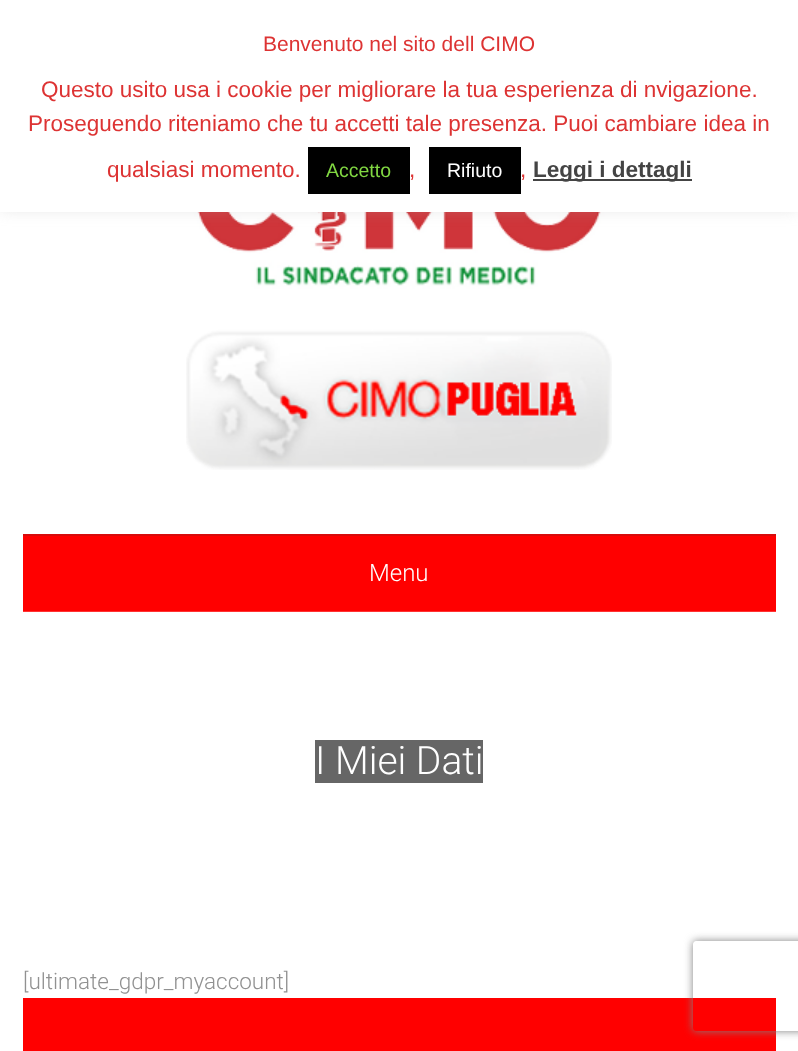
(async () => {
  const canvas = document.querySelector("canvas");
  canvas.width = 798;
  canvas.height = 1051;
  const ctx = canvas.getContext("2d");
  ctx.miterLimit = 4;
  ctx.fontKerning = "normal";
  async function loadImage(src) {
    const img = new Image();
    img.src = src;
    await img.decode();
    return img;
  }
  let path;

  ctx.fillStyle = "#ffffff";
  ctx.fillRect(0, 0, 798, 1051);
  ctx.drawImage(await loadImage("img/1.png"), 186, 212, 426, 258);
  ctx.fillStyle = "rgba(172, 171, 171, 0.3)";
  ctx.filter = "blur(7.5px)";
  ctx.beginPath();
  ctx.rect(0, -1, 798, 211);
  ctx.fill();
  ctx.filter = "none";
  for (const [x, y, w, h, color] of [
    [0, 0, 798, 212, "#ffffff"],
    [308, 147, 102, 47, "#000000"],
    [429, 147, 92, 47, "#000000"],
    [533, 179, 159, 2, "#444444"],
    [23, 536, 753, 75, "#ff0000"],
    [23, 611, 753, 1, "#ff3333"],
    [23, 534, 753, 2, "#d70b0b"],
    [315, 740, 168, 43, "#666666"],
    [23, 998, 753, 53, "#ff0000"],
  ]) {
    ctx.fillStyle = color;
    ctx.fillRect(x, y, w, h);
  }
  ctx.save();
  path = new Path2D("M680 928H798V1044H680ZM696 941H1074C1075.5 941 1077 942.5 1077 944V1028C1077 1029.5 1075.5 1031 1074 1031H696C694.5 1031 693 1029.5 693 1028V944C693 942.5 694.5 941 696 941Z");
  ctx.clip(path, "evenodd");
  ctx.fillStyle = "#808080";
  ctx.filter = "blur(4px)";
  ctx.beginPath();
  ctx.roundRect(693, 941, 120, 90, 3);
  ctx.fill();
  ctx.filter = "none";
  ctx.restore();
  ctx.font = "21px Liberation Sans";
  ctx.fillStyle = "#dd3333";
  ctx.fillText("Benvenuto nel sito dell CIMO", 263, 51);
  ctx.font = "22.5px Liberation Sans";
  for (const [text, x, y] of [
    ["Questo usito usa i cookie per migliorare la tua esperienza di nvigazione.", 41, 97],
    ["Proseguendo riteniamo che tu accetti tale presenza. Puoi cambiare idea in", 28, 131],
    ["qualsiasi momento.", 107, 177],
  ]) {
    ctx.fillText(text, x, y);
  }
  ctx.font = "19.5px Liberation Sans";
  ctx.fillStyle = "#81d742";
  ctx.fillText("Accetto", 326, 177);
  ctx.font = "22.5px Liberation Sans";
  ctx.fillStyle = "#dd3333";
  ctx.fillText(",", 409, 177);
  ctx.font = "19.5px Liberation Sans";
  ctx.fillStyle = "#ffffff";
  ctx.fillText("Rifiuto", 447, 177);
  ctx.font = "22.5px Liberation Sans";
  ctx.fillStyle = "#dd3333";
  ctx.fillText(",", 520, 177);
  ctx.font = "bold 22.5px Liberation Sans";
  ctx.fillStyle = "#444444";
  ctx.fillText("Leggi i dettagli", 533, 177);
  ctx.font = "300 24px Roboto";
  ctx.fillStyle = "#ffffff";
  ctx.fillText("Menu", 369, 581);
  ctx.font = "300 39px Roboto";
  ctx.fillText("I Miei Dati", 315, 774);
  ctx.font = "300 22.5px Roboto";
  ctx.fillStyle = "#919191";
  ctx.fillText("[ultimate_gdpr_myaccount]", 23, 989);
})();
